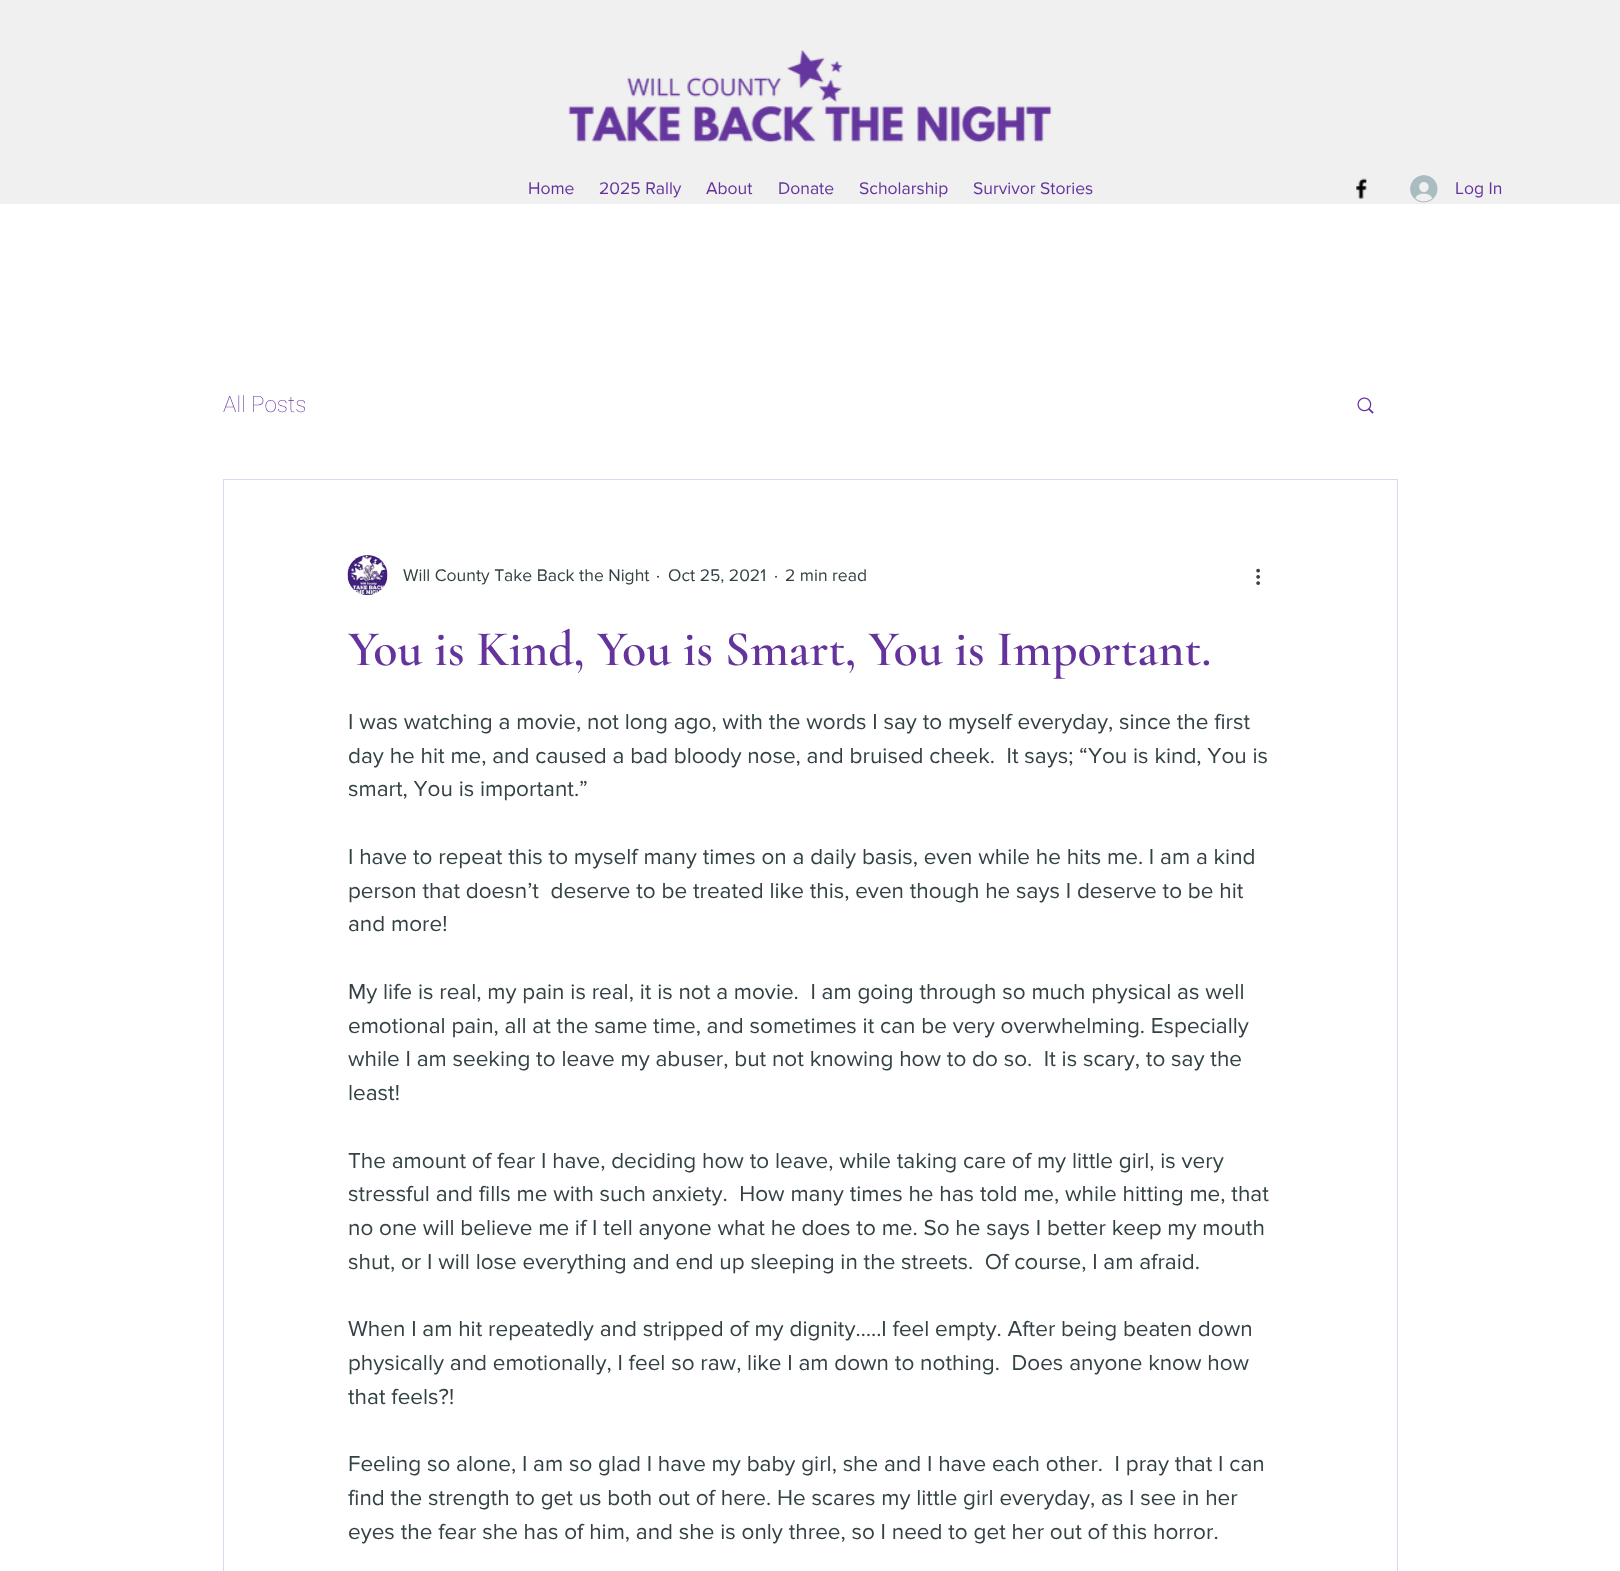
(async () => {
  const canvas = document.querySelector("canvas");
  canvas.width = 1620;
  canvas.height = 1571;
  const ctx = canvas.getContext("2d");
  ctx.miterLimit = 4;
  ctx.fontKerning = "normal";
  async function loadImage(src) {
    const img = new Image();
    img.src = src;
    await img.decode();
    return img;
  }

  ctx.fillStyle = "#ffffff";
  ctx.fillRect(0, 0, 1620, 1571);
  ctx.fillStyle = "#f0f0f0";
  ctx.fillRect(0, 0, 1620, 204);
  ctx.drawImage(await loadImage("img/1.png"), 568, 50, 484, 93);
  ctx.drawImage(await loadImage("img/2.png"), 1356, 178, 11, 21);
  ctx.drawImage(await loadImage("img/3.png"), 1410, 175, 28, 28);
  ctx.drawImage(await loadImage("img/4.png"), 1357, 397, 17, 17);
  ctx.strokeStyle = "#e2d4f1";
  ctx.strokeRect(223.5, 479.5, 1174, 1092);
  ctx.drawImage(await loadImage("img/5.png"), 347, 555, 41, 40);
  ctx.drawImage(await loadImage("img/6.png"), 1256, 568, 4, 17);
  ctx.font = "17.5px 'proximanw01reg'";
  ctx.fillStyle = "#64349c";
  for (const [text, x, y] of [
    ["Home", 528, 194],
    ["2025 Rally", 599, 194],
    ["About", 706, 194],
    ["Donate", 778, 194],
    ["Scholarship", 859, 194],
    ["Survivor Stories", 973, 194],
    ["Log In", 1455, 194],
  ]) {
    ctx.fillText(text, x, y);
  }
  ctx.font = "100 22.5px Roboto";
  ctx.fillText("All Posts", 223, 412);
  ctx.font = "17.5px 'proximanw01reg'";
  ctx.fillStyle = "#344245";
  for (const [text, x, y] of [
    ["Will County Take Back the Night", 403, 581],
    ["·", 656, 581],
    ["Oct 25, 2021", 668, 581],
    ["·", 774, 581],
    ["2 min read", 785, 581],
  ]) {
    ctx.fillText(text, x, y);
  }
  ctx.font = "600 50px Cormorant Garamond";
  ctx.fillStyle = "#64349c";
  ctx.fillText("You is Kind, You is Smart, You is Important.", 348, 665);
  ctx.font = "22.5px 'proximanw01reg'";
  ctx.fillStyle = "#344245";
  for (const [text, x, y] of [
    ["I was watching a movie, not long ago, with the words I say to myself everyday, since the first", 348, 729],
    ["day he hit me, and caused a bad bloody nose, and bruised cheek.  It says; “You is kind, You is", 348, 763],
    ["smart, You is important.”", 348, 796],
    ["I have to repeat this to myself many times on a daily basis, even while he hits me. I am a kind", 348, 864],
    ["person that doesn’t  deserve to be treated like this, even though he says I deserve to be hit", 348, 898],
    ["and more!", 348, 931],
    ["My life is real, my pain is real, it is not a movie.  I am going through so much physical as well", 348, 999],
    ["emotional pain, all at the same time, and sometimes it can be very overwhelming. Especially", 348, 1033],
    ["while I am seeking to leave my abuser, but not knowing how to do so.  It is scary, to say the", 348, 1066],
    ["least!", 348, 1100],
    ["The amount of fear I have, deciding how to leave, while taking care of my little girl, is very", 348, 1168],
    ["stressful and fills me with such anxiety.  How many times he has told me, while hitting me, that", 348, 1201],
    ["no one will believe me if I tell anyone what he does to me. So he says I better keep my mouth", 348, 1235],
    ["shut, or I will lose everything and end up sleeping in the streets.  Of course, I am afraid.", 348, 1269],
    ["When I am hit repeatedly and stripped of my dignity…..I feel empty. After being beaten down", 348, 1336],
    ["physically and emotionally, I feel so raw, like I am down to nothing.  Does anyone know how", 348, 1370],
    ["that feels?!", 348, 1404],
    ["Feeling so alone, I am so glad I have my baby girl, she and I have each other.  I pray that I can", 348, 1471],
    ["find the strength to get us both out of here. He scares my little girl everyday, as I see in her", 348, 1505],
    ["eyes the fear she has of him, and she is only three, so I need to get her out of this horror.", 348, 1539],
  ]) {
    ctx.fillText(text, x, y);
  }
})();
